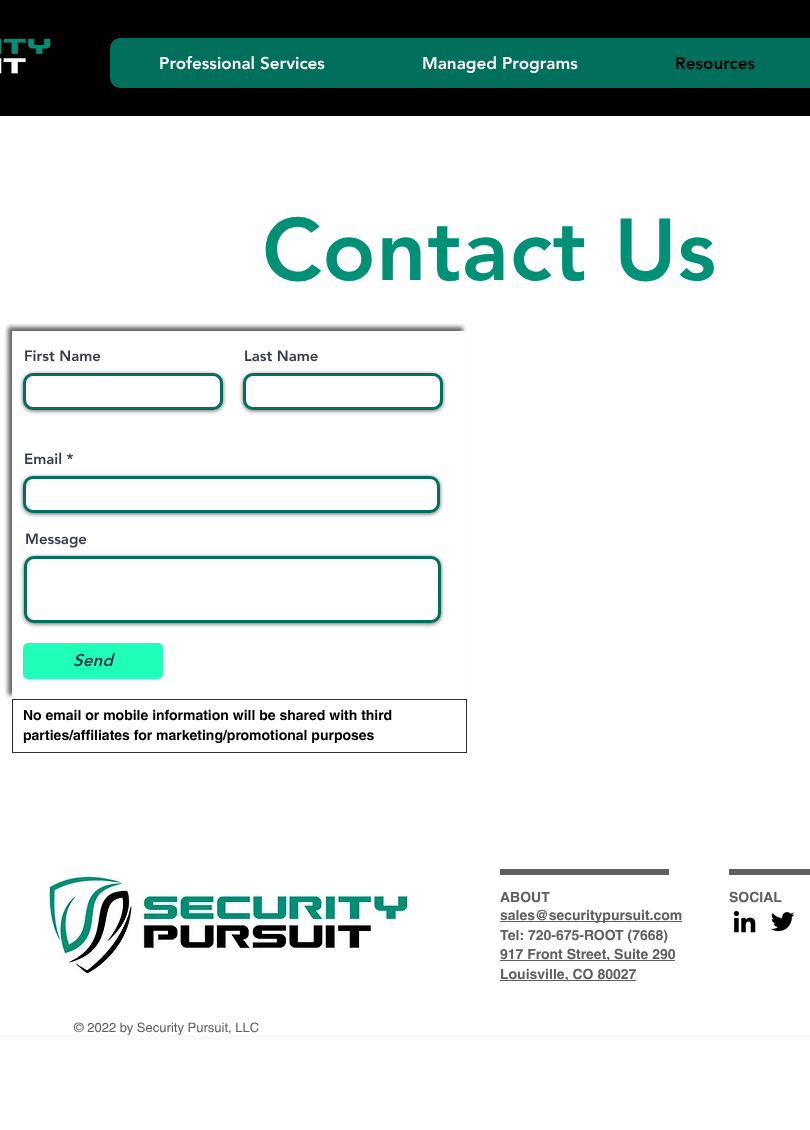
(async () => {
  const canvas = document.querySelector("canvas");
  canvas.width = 810;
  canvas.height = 1130;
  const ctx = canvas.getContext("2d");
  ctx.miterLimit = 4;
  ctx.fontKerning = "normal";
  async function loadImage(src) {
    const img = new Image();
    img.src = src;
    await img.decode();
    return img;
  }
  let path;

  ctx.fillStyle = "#ffffff";
  ctx.fillRect(0, 0, 810, 1130);
  ctx.fillStyle = "#000000";
  ctx.fillRect(0, 0, 810, 116);
  ctx.drawImage(await loadImage("img/1.png"), 0, 38, 51, 36);
  ctx.fillStyle = "#006f5c";
  ctx.beginPath();
  ctx.roundRect(110, 38, 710, 50, 10);
  ctx.fill();
  ctx.save();
  path = new Path2D("M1 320H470V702H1ZM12 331H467V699H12Z");
  ctx.clip(path, "evenodd");
  ctx.fillStyle = "rgba(0, 0, 0, 0.6)";
  ctx.filter = "blur(2px)";
  ctx.beginPath();
  ctx.rect(8, 327, 455, 368);
  ctx.fill();
  ctx.filter = "none";
  ctx.restore();
  ctx.fillStyle = "rgba(0, 0, 0, 0.6)";
  ctx.filter = "blur(2px)";
  ctx.beginPath();
  ctx.roundRect(23, 374, 200, 37, 10);
  ctx.fill();
  ctx.filter = "none";
  ctx.fillStyle = "#ffffff";
  ctx.beginPath();
  ctx.roundRect(24.5, 374.5, 197, 34, 8.5);
  ctx.fill();
  ctx.strokeStyle = "#006f5c";
  ctx.lineWidth = 3;
  ctx.stroke();
  ctx.fillStyle = "rgba(0, 0, 0, 0.6)";
  ctx.filter = "blur(2px)";
  ctx.beginPath();
  ctx.roundRect(243, 374, 200, 37, 10);
  ctx.fill();
  ctx.filter = "none";
  ctx.fillStyle = "#ffffff";
  ctx.beginPath();
  ctx.roundRect(244.5, 374.5, 197, 34, 8.5);
  ctx.fill();
  ctx.stroke();
  ctx.fillStyle = "rgba(0, 0, 0, 0.6)";
  ctx.filter = "blur(2px)";
  ctx.beginPath();
  ctx.roundRect(23, 477, 417, 37, 10);
  ctx.fill();
  ctx.filter = "none";
  ctx.fillStyle = "#ffffff";
  ctx.beginPath();
  ctx.roundRect(24.5, 477.5, 414, 34, 8.5);
  ctx.fill();
  ctx.stroke();
  ctx.fillStyle = "rgba(0, 0, 0, 0.6)";
  ctx.filter = "blur(2px)";
  ctx.beginPath();
  ctx.roundRect(24, 557, 417, 67, 10);
  ctx.fill();
  ctx.filter = "none";
  ctx.fillStyle = "#ffffff";
  ctx.beginPath();
  ctx.roundRect(25.5, 557.5, 414, 64, 8.5);
  ctx.fill();
  ctx.stroke();
  ctx.fillStyle = "#1fffba";
  ctx.beginPath();
  ctx.roundRect(23, 643, 140, 36, 5);
  ctx.fill();
  ctx.strokeStyle = "#2f2e2e";
  ctx.lineWidth = 1;
  ctx.strokeRect(12.5, 699.5, 454, 53);
  ctx.drawImage(await loadImage("img/2.png"), 45, 870, 366, 104);
  for (const [x, y, w, h, color] of [
    [500, 869, 169, 6, "#605e5e"],
    [729, 869, 81, 6, "#605e5e"],
    [500, 921, 182, 1, "#605e5e"],
    [500, 960, 175, 1, "#605e5e"],
    [500, 980, 136, 1, "#605e5e"],
  ]) {
    ctx.fillStyle = color;
    ctx.fillRect(x, y, w, h);
  }
  ctx.drawImage(await loadImage("img/3.png"), 733, 910, 23, 23);
  ctx.drawImage(await loadImage("img/4.png"), 771, 912, 24, 20);
  ctx.fillStyle = "#fafafa";
  ctx.fillRect(0, 1035, 810, 5);
  ctx.font = "900 17px 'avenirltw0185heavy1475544'";
  ctx.fillStyle = "#ffffff";
  ctx.fillText("Professional Services", 159, 69);
  ctx.fillText("Managed Programs", 422, 69);
  ctx.fillStyle = "#000000";
  ctx.fillText("Resources", 675, 69);
  ctx.letterSpacing = "0.9px";
  ctx.font = "900 87px 'avenirltw0185heavy1475544'";
  ctx.fillStyle = "#009076";
  ctx.fillText("Contact Us", 262, 280);
  ctx.letterSpacing = "0px";
  ctx.font = "900 15px 'avenirltw0185heavy1475544'";
  ctx.fillStyle = "#373b4d";
  for (const [text, x, y] of [
    ["First Name", 24, 361],
    ["Last Name", 244, 361],
    ["Email *", 24, 464],
    ["Message", 25, 544],
  ]) {
    ctx.fillText(text, x, y);
  }
  ctx.font = "italic 900 17px 'avenirltw0185heavy1475544'";
  ctx.fillText("Send", 73, 666);
  ctx.font = "bold 14px helvetica";
  ctx.fillStyle = "#000000";
  ctx.fillText("No email or mobile information will be shared with third", 23, 720);
  ctx.fillText("parties/affiliates for marketing/promotional purposes", 23, 740);
  ctx.fillStyle = "#605e5e";
  for (const [text, x, y] of [
    ["ABOUT", 500, 902],
    ["SOCIAL", 729, 902],
    ["sales@securitypursuit.com", 500, 920],
    ["Tel: 720-675-ROOT (7668)", 500, 940],
    ["917 Front Street, Suite 290", 500, 959],
    ["Louisville, CO 80027", 500, 979],
  ]) {
    ctx.fillText(text, x, y);
  }
  ctx.font = "13px helvetica";
  ctx.fillText("© 2022 by Security Pursuit, LLC", 74, 1032);
})();
